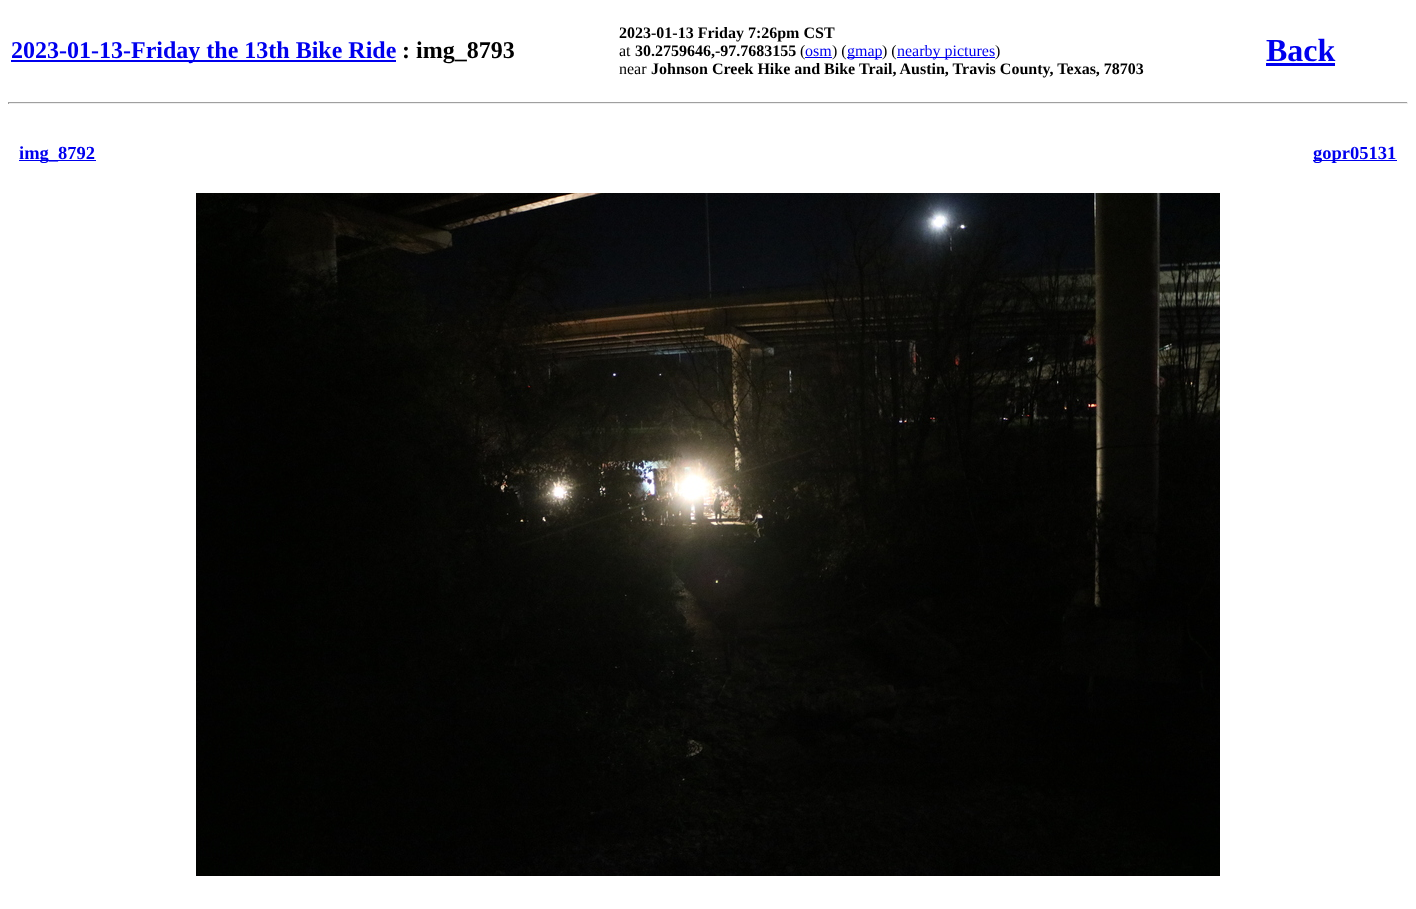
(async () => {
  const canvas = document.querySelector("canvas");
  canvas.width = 1416;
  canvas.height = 909;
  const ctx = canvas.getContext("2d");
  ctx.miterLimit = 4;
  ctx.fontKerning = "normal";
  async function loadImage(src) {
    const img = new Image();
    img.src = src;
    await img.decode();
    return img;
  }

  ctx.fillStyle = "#ffffff";
  ctx.fillRect(0, 0, 1416, 909);
  for (const [x, y, w, h, color] of [
    [11, 60, 385, 2, "#0000ee"],
    [805, 57, 27, 1, "#0000ee"],
    [847, 57, 35, 1, "#0000ee"],
    [897, 57, 98, 1, "#0000ee"],
    [1266, 63, 69, 3, "#0000ee"],
    [8, 102, 1400, 1, "#9f9f9f"],
    [1407, 102, 1, 2, "#eeeeee"],
    [8, 103, 1400, 1, "#eeeeee"],
    [8, 102, 1, 2, "#9f9f9f"],
    [19, 160, 77, 1, "#0000ee"],
    [1313, 160, 84, 1, "#0000ee"],
  ]) {
    ctx.fillStyle = color;
    ctx.fillRect(x, y, w, h);
  }
  ctx.drawImage(await loadImage("img/1.png"), 196, 193, 1024, 683);
  ctx.font = "bold 24px Liberation Serif";
  ctx.fillText("2023-01-13-Friday the 13th Bike Ride", 11, 58);
  ctx.fillStyle = "#000000";
  ctx.fillText(": img_8793", 402, 58);
  ctx.font = "bold 16px Liberation Serif";
  ctx.fillText("2023-01-13 Friday 7:26pm CST", 619, 38);
  ctx.font = "16px Liberation Serif";
  ctx.fillText("at", 619, 56);
  ctx.font = "bold 16px Liberation Serif";
  ctx.fillText("30.2759646,-97.7683155", 635, 56);
  ctx.font = "16px Liberation Serif";
  ctx.fillText("(", 800, 56);
  ctx.fillStyle = "#0000ee";
  ctx.fillText("osm", 805, 56);
  ctx.fillStyle = "#000000";
  ctx.fillText(") (", 832, 56);
  ctx.fillStyle = "#0000ee";
  ctx.fillText("gmap", 847, 56);
  ctx.fillStyle = "#000000";
  ctx.fillText(") (", 882, 56);
  ctx.fillStyle = "#0000ee";
  ctx.fillText("nearby pictures", 897, 56);
  ctx.fillStyle = "#000000";
  ctx.fillText(")", 995, 56);
  ctx.fillText("near", 619, 74);
  ctx.font = "bold 16px Liberation Serif";
  ctx.fillText("Johnson Creek Hike and Bike Trail, Austin, Travis County, Texas, 78703", 651, 74);
  ctx.font = "bold 32px Liberation Serif";
  ctx.fillStyle = "#0000ee";
  ctx.fillText("Back", 1266, 61);
  ctx.font = "bold 18.5px Liberation Serif";
  ctx.fillText("img_8792", 19, 159);
  ctx.fillText("gopr05131", 1313, 159);
})();
